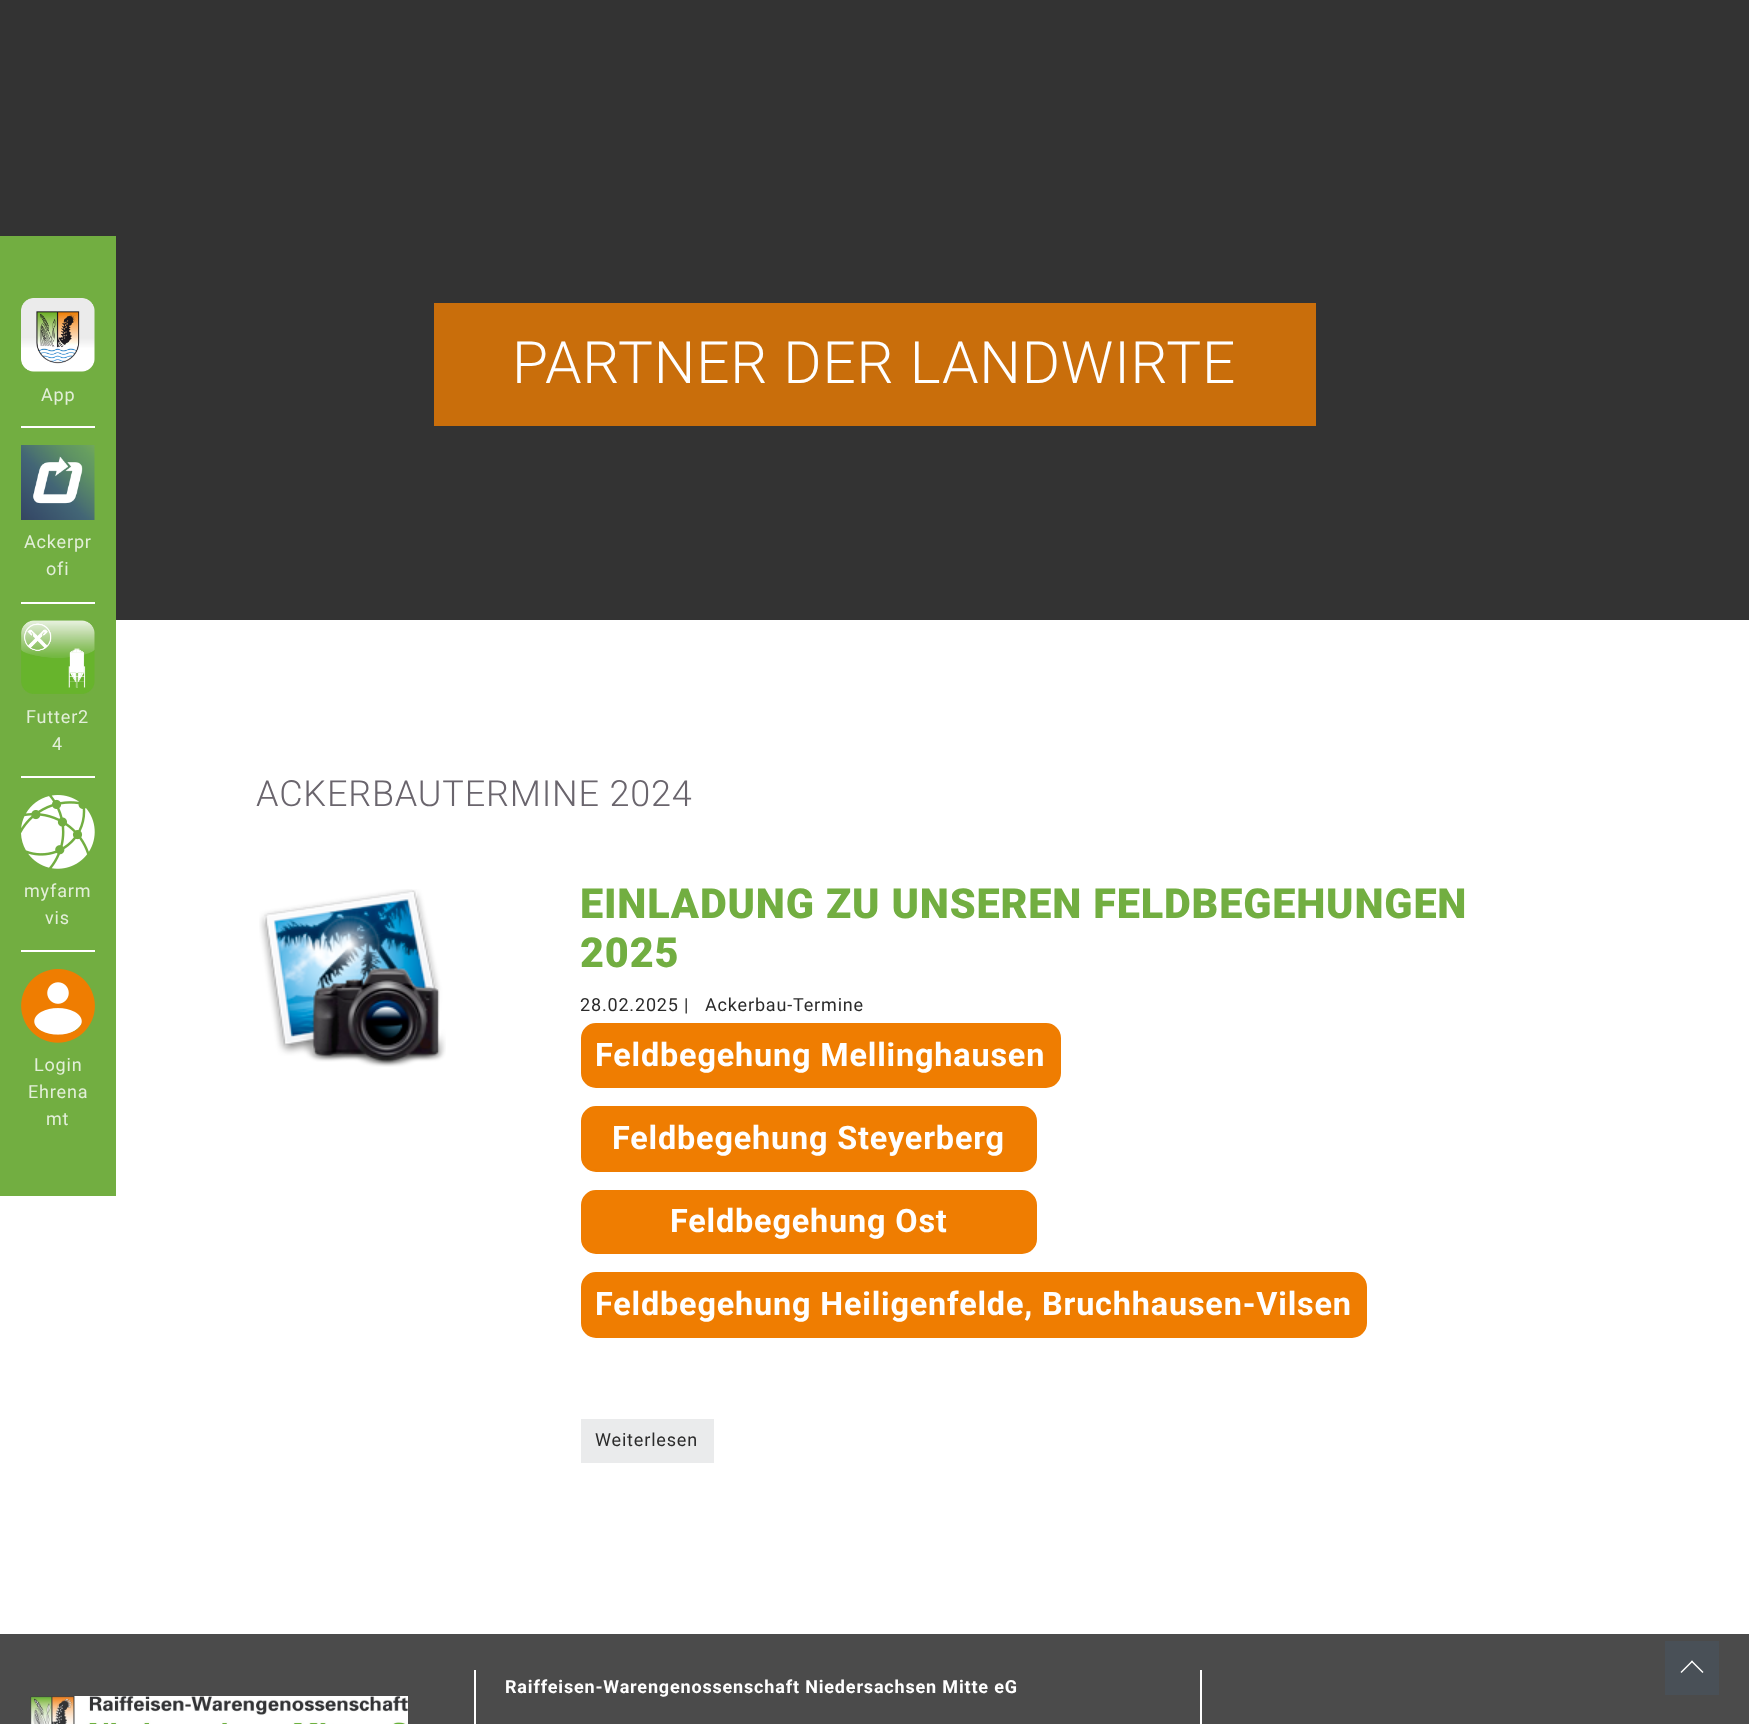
(async () => {
  const canvas = document.querySelector("canvas");
  canvas.width = 1749;
  canvas.height = 1724;
  const ctx = canvas.getContext("2d");
  ctx.miterLimit = 4;
  ctx.fontKerning = "normal";
  async function loadImage(src) {
    const img = new Image();
    img.src = src;
    await img.decode();
    return img;
  }
  let path;

  ctx.fillStyle = "#ffffff";
  ctx.fillRect(0, 0, 1749, 1724);
  for (const [x, y, w, h, color] of [
    [0, 0, 1749, 620, "#333333"],
    [434, 303, 882, 123, "#c96e0b"],
    [0, 236, 116, 960, "#72ae41"],
    [21, 426, 74, 2, "#ffffff"],
  ]) {
    ctx.fillStyle = color;
    ctx.fillRect(x, y, w, h);
  }
  ctx.drawImage(await loadImage("img/1.png"), 21, 298, 74, 74);
  ctx.fillRect(21, 602, 74, 2);
  ctx.drawImage(await loadImage("img/2.png"), 21, 445, 74, 75);
  ctx.fillRect(21, 776, 74, 2);
  ctx.drawImage(await loadImage("img/3.png"), 21, 620, 74, 74);
  ctx.fillRect(21, 950, 74, 2);
  ctx.drawImage(await loadImage("img/4.png"), 21, 795, 74, 74);
  ctx.drawImage(await loadImage("img/5.png"), 21, 969, 74, 74);
  ctx.drawImage(await loadImage("img/6.png"), 259, 889, 187, 178);
  ctx.fillStyle = "#ef7d01";
  ctx.beginPath();
  ctx.roundRect(582, 1024, 478, 63, 14);
  ctx.fill();
  ctx.strokeStyle = "#ef7d01";
  ctx.lineWidth = 2;
  ctx.stroke();
  ctx.beginPath();
  ctx.roundRect(582, 1107, 454, 64, 14);
  ctx.fill();
  ctx.stroke();
  ctx.beginPath();
  ctx.roundRect(582, 1191, 454, 62, 14);
  ctx.fill();
  ctx.stroke();
  ctx.beginPath();
  ctx.roundRect(582, 1273, 784, 64, 14);
  ctx.fill();
  ctx.stroke();
  for (const [x, y, w, h, color] of [
    [581, 1419, 133, 44, "#eaebec"],
    [0, 1634, 1749, 90, "#4b4b4b"],
    [1200, 1670, 2, 54, "#ffffff"],
    [474, 1670, 2, 54, "#ffffff"],
  ]) {
    ctx.fillStyle = color;
    ctx.fillRect(x, y, w, h);
  }
  ctx.drawImage(await loadImage("img/7.png"), 30, 1696, 378, 28);
  ctx.fillStyle = "#495057";
  ctx.fillRect(1665, 1641, 54, 54);
  ctx.fillStyle = "#ffffff";
  path = new Path2D("M1692 1660.5L1703.5 1672L1702.5 1673L1691 1661.5Z");
  ctx.fill(path);
  path = new Path2D("M1692 1660.5L1693 1661.5L1681.5 1673L1680.5 1672Z");
  ctx.fill(path);
  ctx.letterSpacing = "0.83px";
  ctx.font = "300 58.5px Roboto";
  ctx.fillText("PARTNER DER LANDWIRTE", 512, 383);
  ctx.font = "18px Roboto";
  ctx.fillStyle = "#e3efd9";
  for (const [text, x, y] of [
    ["App", 41, 401],
    ["Ackerpr", 24, 548],
    ["ofi", 46, 575],
    ["Futter2", 26, 723],
    ["4", 52, 750],
    ["myfarm", 24, 897],
    ["vis", 45, 924],
    ["Login", 34, 1071],
    ["Ehrena", 28, 1098],
    ["mt", 46, 1125],
  ]) {
    ctx.fillText(text, x, y);
  }
  ctx.font = "300 36px Roboto";
  ctx.fillStyle = "#6a656d";
  ctx.fillText("ACKERBAUTERMINE 2024", 256, 806);
  ctx.font = "900 41.4px Roboto";
  ctx.fillStyle = "#72ae41";
  ctx.fillText("EINLADUNG ZU UNSEREN FELDBEGEHUNGEN", 580, 918);
  ctx.fillText("2025", 580, 967);
  ctx.font = "18px Roboto";
  ctx.fillStyle = "#2b2b2b";
  ctx.fillText("28.02.2025 |", 580, 1011);
  ctx.fillText("Ackerbau-Termine", 705, 1011);
  ctx.font = "bold 32.4px Roboto";
  ctx.fillStyle = "#ffffff";
  for (const [text, x, y] of [
    ["Feldbegehung Mellinghausen", 595, 1066],
    ["Feldbegehung Steyerberg", 612, 1149],
    ["Feldbegehung Ost", 670, 1232],
    ["Feldbegehung Heiligenfelde, Bruchhausen-Vilsen", 595, 1315],
  ]) {
    ctx.fillText(text, x, y);
  }
  ctx.font = "18px Roboto";
  ctx.fillStyle = "#2b2b2b";
  ctx.fillText("Weiterlesen", 595, 1446);
  ctx.font = "bold 18px Roboto";
  ctx.fillStyle = "#ffffff";
  ctx.fillText("Raiffeisen-Warengenossenschaft Niedersachsen Mitte eG", 505, 1693);
})();
